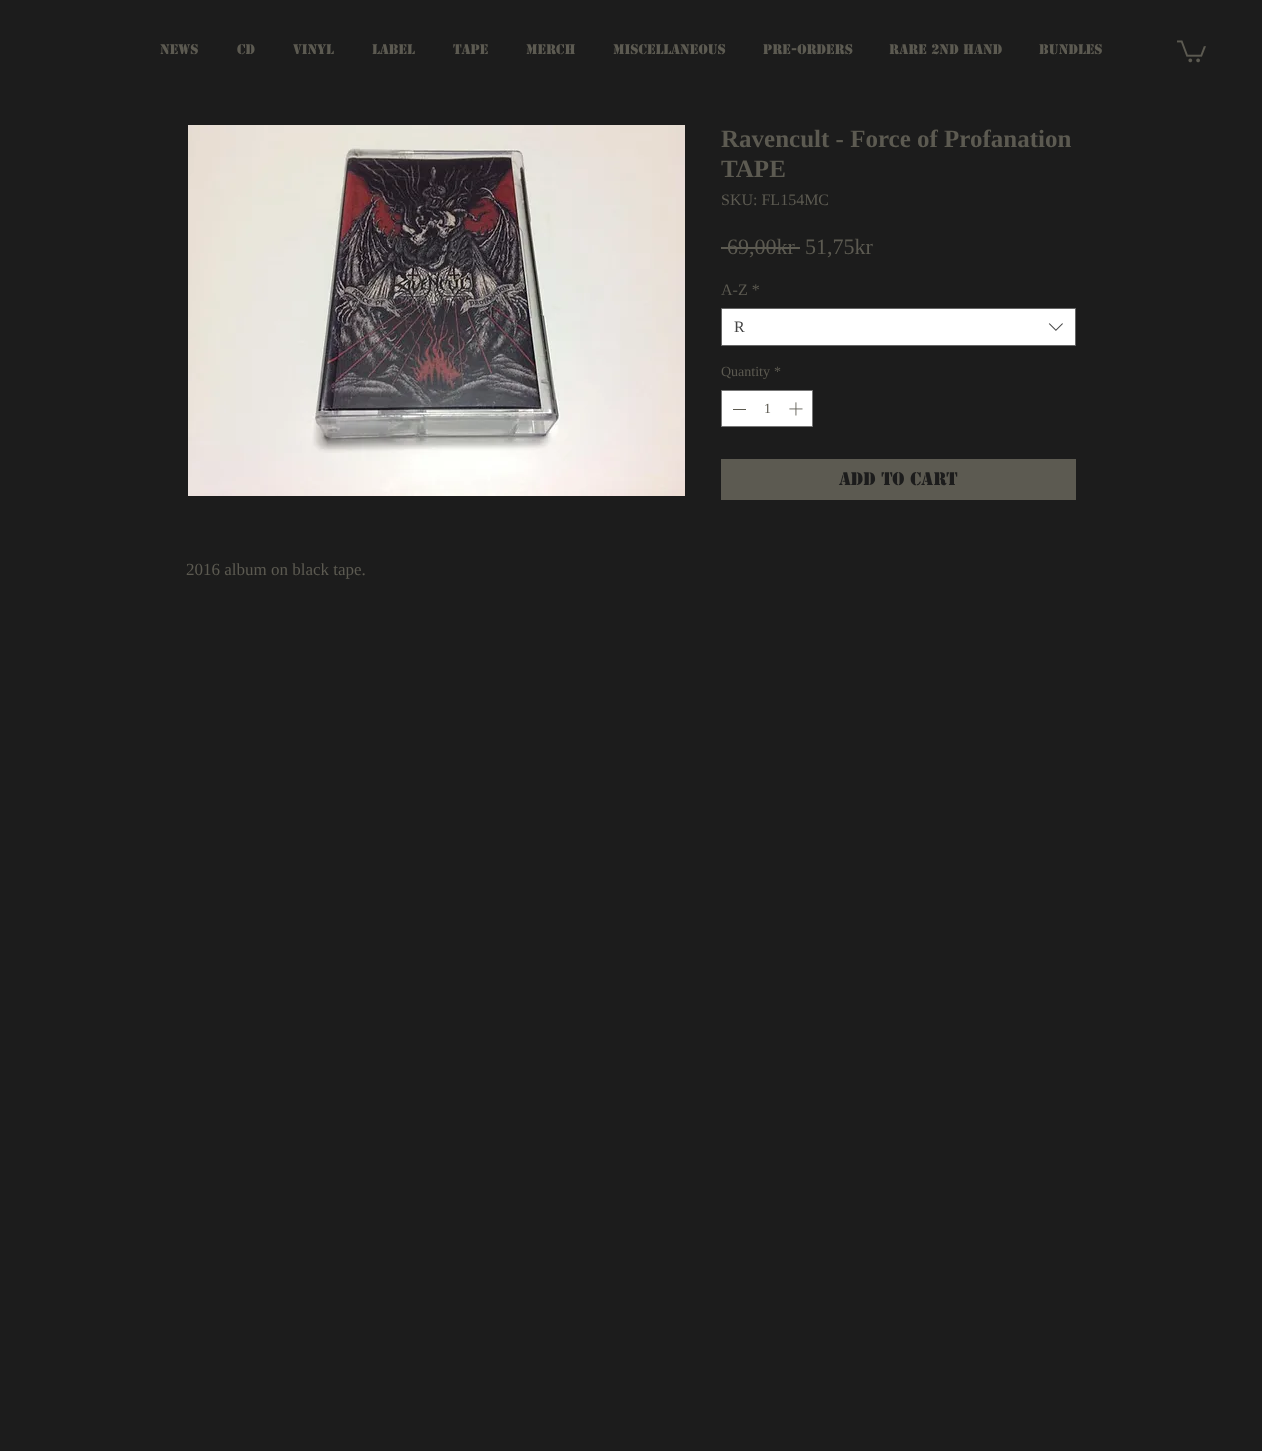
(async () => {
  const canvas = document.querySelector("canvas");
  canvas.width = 1262;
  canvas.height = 1451;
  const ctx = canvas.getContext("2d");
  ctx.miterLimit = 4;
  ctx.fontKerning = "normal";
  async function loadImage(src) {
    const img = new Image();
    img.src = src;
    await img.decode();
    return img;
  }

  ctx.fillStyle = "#1c1c1c";
  ctx.fillRect(0, 0, 1262, 1451);
  ctx.drawImage(await loadImage("img/1.png"), 1177, 40, 29, 23);
  ctx.fillStyle = "#5c5a51";
  ctx.fillRect(721, 247, 79, 2);
  ctx.fillStyle = "#ffffff";
  ctx.beginPath();
  ctx.rect(721.5, 308.5, 354, 37);
  ctx.fill();
  ctx.strokeStyle = "#666666";
  ctx.stroke();
  ctx.drawImage(await loadImage("img/2.png"), 1048, 323, 15, 8);
  ctx.beginPath();
  ctx.rect(721.5, 390.5, 91, 36);
  ctx.fill();
  ctx.strokeStyle = "#777777";
  ctx.stroke();
  ctx.fillStyle = "#5c5a51";
  ctx.fillRect(733, 409, 13, 1);
  ctx.drawImage(await loadImage("img/3.png"), 789, 402, 14, 14);
  ctx.fillRect(721, 459, 355, 41);
  ctx.drawImage(await loadImage("img/4.png"), 188, 125, 497, 371);
  ctx.font = "bold 13px 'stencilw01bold'";
  for (const [text, x, y] of [
    ["NEWS", 160, 54],
    ["CD", 237, 54],
    ["VINYL", 293, 54],
    ["LABEL", 372, 54],
    ["TAPE", 453, 54],
    ["MERCH", 526, 54],
    ["MISCELLANEOUS", 613, 54],
    ["PRE-ORDERS", 763, 54],
    ["RARE 2ND HAND", 889, 54],
    ["Bundles", 1039, 54],
  ]) {
    ctx.fillText(text, x, y);
  }
  ctx.font = "bold 25px Liberation Serif";
  ctx.fillText("Ravencult - Force of Profanation", 721, 147);
  ctx.fillText("TAPE", 721, 177);
  ctx.font = "16px Liberation Serif";
  ctx.fillText("SKU: FL154MC", 721, 205);
  ctx.font = "22px Liberation Serif";
  ctx.fillText("69,00kr", 727, 254);
  ctx.fillText("51,75kr", 805, 254);
  ctx.font = "16px Liberation Serif";
  ctx.fillText("A-Z *", 721, 295);
  ctx.fillStyle = "#444444";
  ctx.fillText("R", 734, 332);
  ctx.font = "14px Liberation Serif";
  ctx.fillStyle = "#5c5a51";
  for (const [text, x, y] of [
    ["Quantity", 721, 376],
    ["*", 774, 376],
    ["1", 764, 413],
  ]) {
    ctx.fillText(text, x, y);
  }
  ctx.font = "bold 17px 'stencilw01bold'";
  ctx.fillStyle = "#1c1c1c";
  ctx.fillText("Add to Cart", 839, 485);
  ctx.font = "17px Liberation Serif";
  ctx.fillStyle = "#5c5a51";
  ctx.fillText("2016 album on black tape.", 186, 575);
})();
